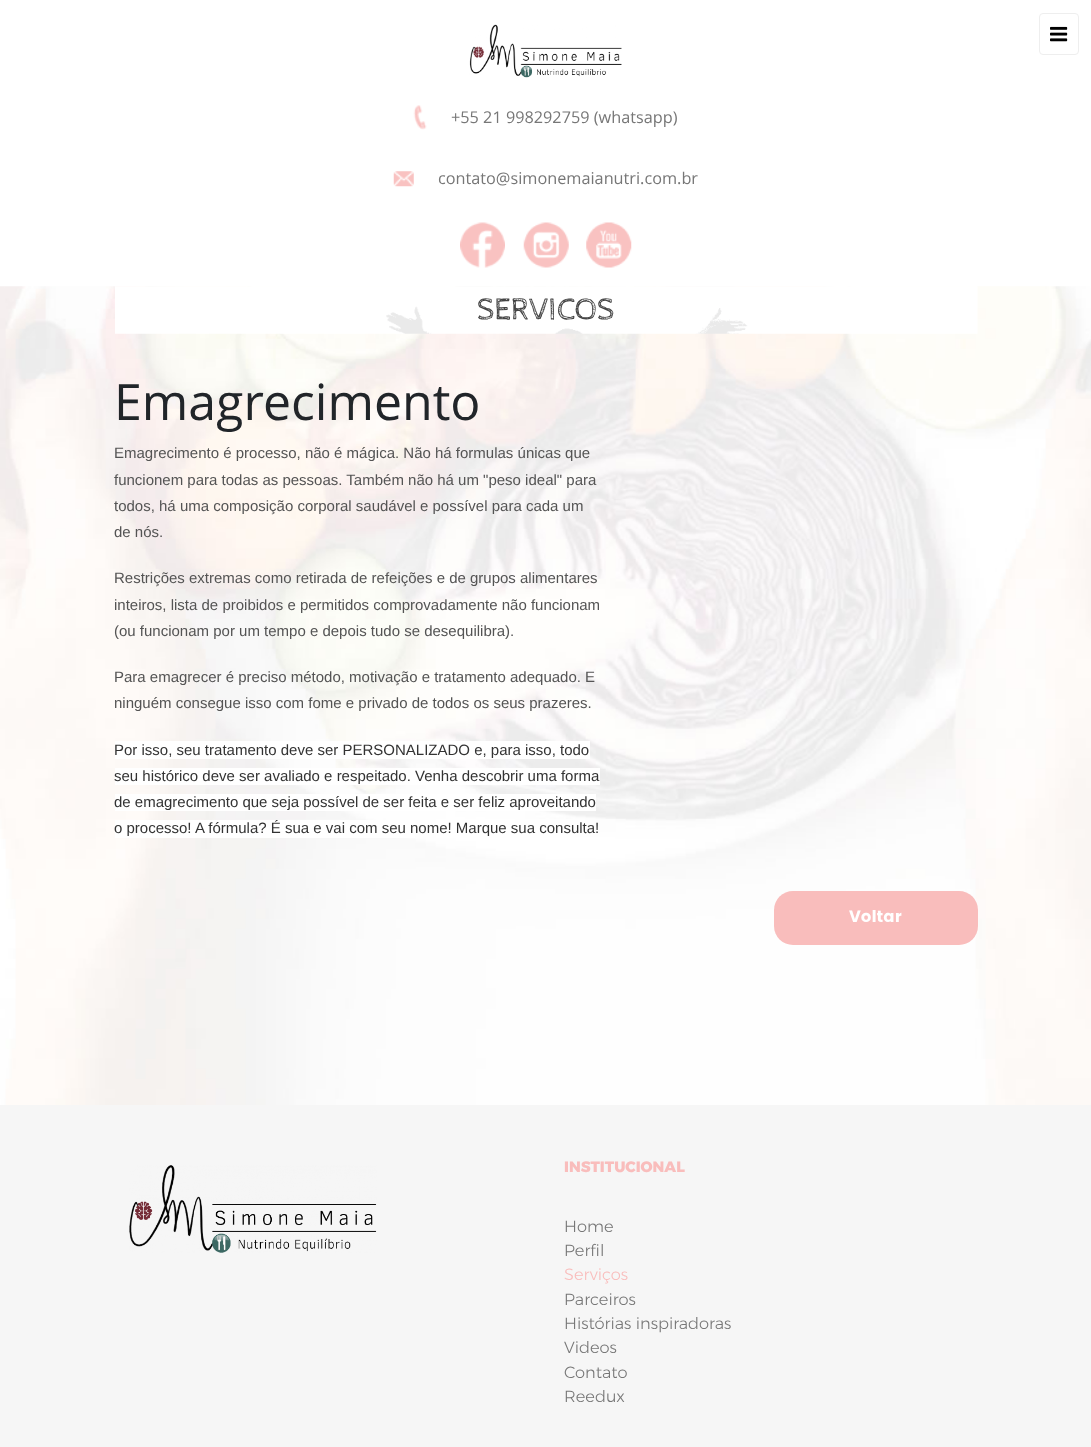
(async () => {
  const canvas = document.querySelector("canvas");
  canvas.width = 1091;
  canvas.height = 1447;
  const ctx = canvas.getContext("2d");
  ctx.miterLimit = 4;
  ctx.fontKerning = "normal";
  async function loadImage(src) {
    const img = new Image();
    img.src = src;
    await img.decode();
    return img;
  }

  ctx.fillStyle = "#ffffff";
  ctx.fillRect(0, 0, 1091, 1447);
  ctx.beginPath();
  ctx.roundRect(1039.5, 13.5, 39, 41, 3.5);
  ctx.strokeStyle = "#eeeeee";
  ctx.stroke();
  ctx.drawImage(await loadImage("img/1.png"), 1050, 26, 18, 16);
  ctx.drawImage(await loadImage("img/2.png"), 469, 24, 153, 54);
  ctx.drawImage(await loadImage("img/3.png"), 413, 105, 14, 25);
  ctx.drawImage(await loadImage("img/4.png"), 393, 171, 21, 16);
  ctx.drawImage(await loadImage("img/5.png"), 460, 222, 45, 46);
  ctx.drawImage(await loadImage("img/6.png"), 523, 222, 46, 46);
  ctx.drawImage(await loadImage("img/7.png"), 586, 222, 46, 46);
  ctx.drawImage(await loadImage("img/8.png"), 0, 286, 1091, 819);
  ctx.drawImage(await loadImage("img/9.png"), 115, 286, 863, 48);
  for (const [x, y, w, h, color] of [
    [115, 741, 475, 18, "#ffffff"],
    [115, 768, 485, 17, "#ffffff"],
    [115, 794, 481, 17, "#ffffff"],
    [115, 820, 300, 18, "#ffffff"],
  ]) {
    ctx.fillStyle = color;
    ctx.fillRect(x, y, w, h);
  }
  ctx.fillStyle = "#f9bdbc";
  ctx.beginPath();
  ctx.roundRect(774, 891, 204, 54, 19);
  ctx.fill();
  ctx.fillStyle = "#f6f6f6";
  ctx.fillRect(0, 1105, 1091, 342);
  ctx.drawImage(await loadImage("img/10.png"), 129, 1165, 248, 88);
  ctx.font = "16.25px Open Sans";
  ctx.fillStyle = "#777777";
  ctx.fillText("+55 21 998292759 (whatsapp)", 451, 123);
  ctx.fillText("contato@simonemaianutri.com.br", 438, 184);
  ctx.font = "31.25px Cabin Sketch";
  ctx.fillStyle = "#444444";
  ctx.fillText("SERVICOS", 477, 319);
  ctx.font = "50px Open Sans";
  ctx.fillStyle = "#212529";
  ctx.fillText("Emagrecimento", 114, 420);
  ctx.font = "15px Liberation Sans";
  ctx.fillStyle = "#545454";
  for (const [text, x, y] of [
    ["Emagrecimento é processo, não é mágica. Não há formulas únicas que", 114, 458],
    ["funcionem para todas as pessoas. Também não há um \"peso ideal\" para", 114, 485],
    ["todos, há uma composição corporal saudável e possível para cada um", 114, 511],
    ["de nós.", 114, 537],
    ["Restrições extremas como retirada de refeições e de grupos alimentares", 114, 583],
    ["inteiros, lista de proibidos e permitidos comprovadamente não funcionam", 114, 610],
    ["(ou funcionam por um tempo e depois tudo se desequilibra).", 114, 636],
    ["Para emagrecer é preciso método, motivação e tratamento adequado. E", 114, 682],
    ["ninguém consegue isso com fome e privado de todos os seus prazeres.", 114, 708],
  ]) {
    ctx.fillText(text, x, y);
  }
  ctx.fillStyle = "#333333";
  for (const [text, x, y] of [
    ["Por isso, seu tratamento deve ser PERSONALIZADO e, para isso, todo", 114, 755],
    ["seu histórico deve ser avaliado e respeitado. Venha descobrir uma forma", 114, 781],
    ["de emagrecimento que seja possível de ser feita e ser feliz aproveitando", 114, 807],
    ["o processo! A fórmula? É sua e vai com seu nome! Marque sua consulta!", 114, 833],
  ]) {
    ctx.fillText(text, x, y);
  }
  ctx.font = "bold 16.25px Poppins";
  ctx.fillStyle = "#ffffff";
  ctx.fillText("Voltar", 849, 922);
  ctx.font = "800 15px Montserrat";
  ctx.fillStyle = "#f9bdbc";
  ctx.fillText("INSTITUCIONAL", 564, 1172);
  ctx.font = "300 16.25px Montserrat";
  ctx.fillStyle = "#777777";
  ctx.fillText("Home", 564, 1232);
  ctx.fillText("Perfil", 564, 1256);
  ctx.fillStyle = "#f9bdbc";
  ctx.fillText("Serviços", 564, 1280);
  ctx.fillStyle = "#777777";
  for (const [text, x, y] of [
    ["Parceiros", 564, 1305],
    ["Histórias inspiradoras", 564, 1329],
    ["Videos", 564, 1353],
    ["Contato", 564, 1378],
    ["Reedux", 564, 1402],
  ]) {
    ctx.fillText(text, x, y);
  }
})();
